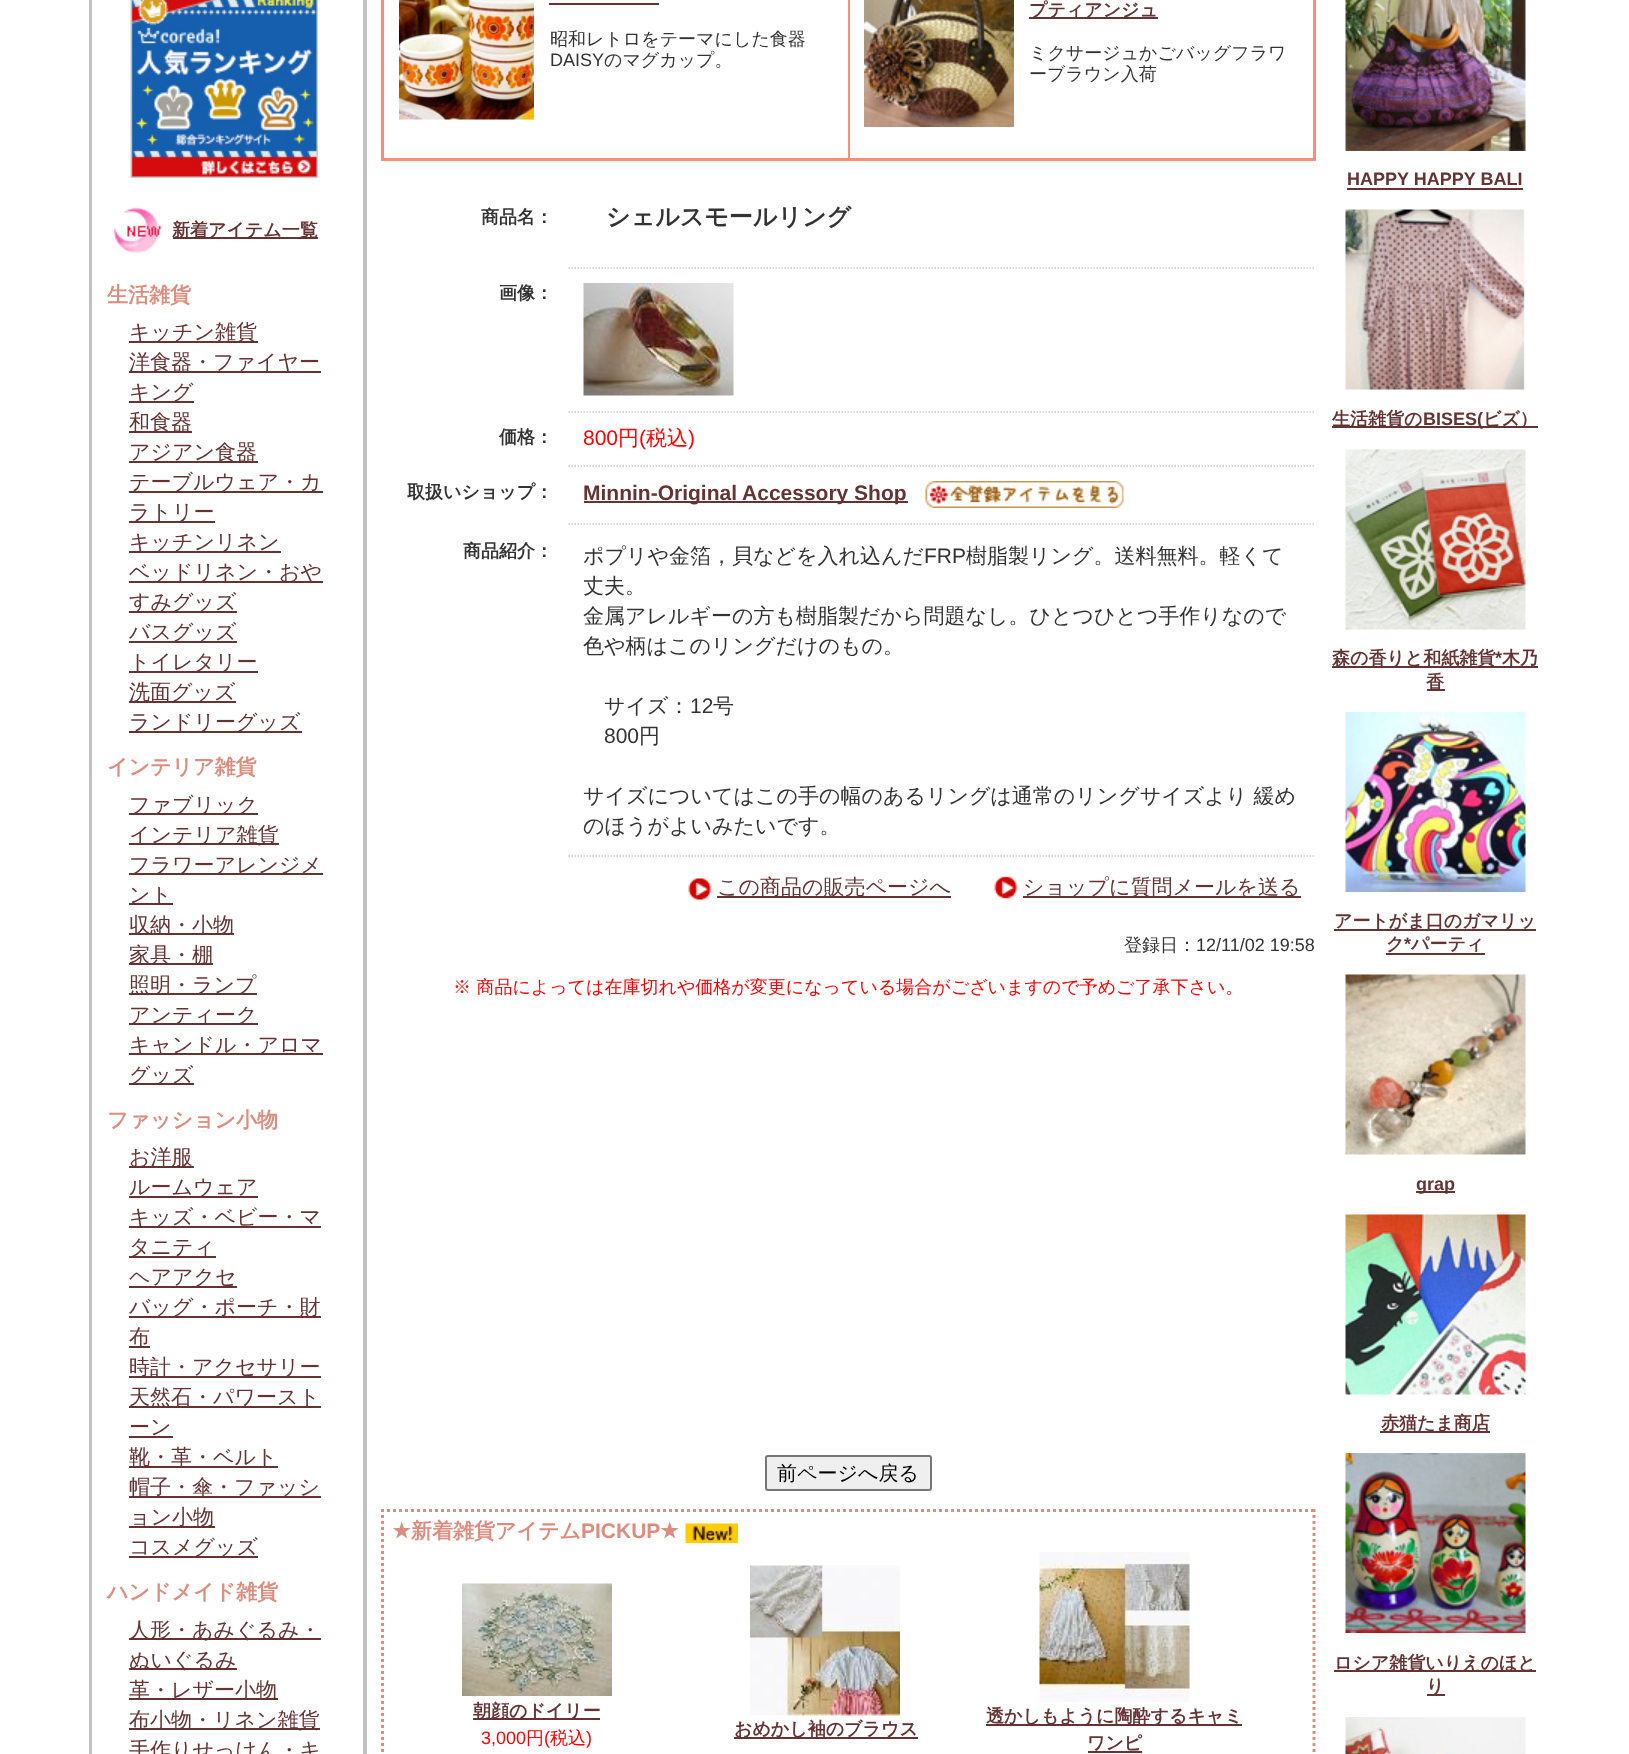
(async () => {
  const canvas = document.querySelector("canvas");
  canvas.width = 1629;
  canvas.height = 1754;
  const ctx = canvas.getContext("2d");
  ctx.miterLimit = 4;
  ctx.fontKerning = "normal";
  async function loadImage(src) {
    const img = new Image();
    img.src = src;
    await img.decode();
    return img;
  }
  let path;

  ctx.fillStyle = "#ffffff";
  ctx.fillRect(0, 0, 1629, 1754);
  ctx.fillStyle = "#c1c1c1";
  ctx.fillRect(89, 0, 3, 1754);
  ctx.fillRect(363, 0, 4, 1754);
  ctx.drawImage(await loadImage("img/1.png"), 130, 0, 188, 178);
  ctx.drawImage(await loadImage("img/2.png"), 113, 207, 48, 47);
  for (const [x, y, w, h, color] of [
    [173, 237, 145, 2, "#663333"],
    [129, 341, 129, 2, "#663333"],
    [129, 371, 192, 2, "#663333"],
    [129, 401, 65, 2, "#663333"],
    [129, 431, 63, 2, "#663333"],
    [129, 461, 129, 2, "#663333"],
    [129, 491, 194, 2, "#663333"],
    [129, 521, 86, 2, "#663333"],
    [129, 551, 152, 2, "#663333"],
    [129, 581, 194, 2, "#663333"],
    [129, 611, 108, 2, "#663333"],
    [129, 641, 108, 2, "#663333"],
    [129, 671, 129, 2, "#663333"],
    [129, 701, 107, 2, "#663333"],
    [129, 731, 173, 2, "#663333"],
    [129, 813, 129, 2, "#663333"],
    [129, 843, 150, 2, "#663333"],
    [129, 873, 194, 2, "#663333"],
    [129, 903, 44, 2, "#663333"],
    [129, 933, 105, 2, "#663333"],
    [129, 963, 84, 2, "#663333"],
    [129, 993, 128, 2, "#663333"],
    [129, 1023, 129, 2, "#663333"],
    [129, 1053, 194, 2, "#663333"],
    [129, 1083, 65, 2, "#663333"],
    [129, 1166, 65, 2, "#663333"],
    [129, 1196, 129, 2, "#663333"],
    [129, 1226, 192, 2, "#663333"],
    [129, 1256, 87, 2, "#663333"],
    [129, 1286, 108, 2, "#663333"],
    [129, 1316, 192, 2, "#663333"],
    [129, 1346, 21, 2, "#663333"],
    [129, 1376, 192, 2, "#663333"],
    [129, 1406, 192, 2, "#663333"],
    [129, 1436, 44, 2, "#663333"],
    [129, 1466, 149, 2, "#663333"],
    [129, 1496, 192, 2, "#663333"],
    [129, 1526, 86, 2, "#663333"],
    [129, 1556, 129, 2, "#663333"],
    [129, 1638, 192, 2, "#663333"],
    [129, 1668, 108, 2, "#663333"],
    [129, 1698, 149, 2, "#663333"],
    [129, 1728, 191, 2, "#663333"],
    [1313, 0, 3, 161, "#ff8d76"],
    [848, 0, 2, 161, "#ff8d76"],
    [381, 158, 935, 3, "#ff8d76"],
    [381, 0, 3, 161, "#ff8d76"],
  ]) {
    ctx.fillStyle = color;
    ctx.fillRect(x, y, w, h);
  }
  ctx.drawImage(await loadImage("img/3.png"), 399, 0, 135, 120);
  ctx.fillStyle = "#663333";
  ctx.fillRect(549, 3, 110, 2);
  ctx.drawImage(await loadImage("img/4.png"), 864, 0, 150, 127);
  ctx.fillRect(1029, 17, 129, 2);
  path = new Path2D("M568.5 268H1315.5");
  ctx.strokeStyle = "#cccccc";
  ctx.lineWidth = 1.5;
  ctx.setLineDash([1.5, 1.5]);
  ctx.stroke(path);
  path = new Path2D("M568.5 412H1315.5");
  ctx.stroke(path);
  ctx.drawImage(await loadImage("img/5.png"), 583, 283, 151, 113);
  path = new Path2D("M568.5 466H1315.5");
  ctx.stroke(path);
  path = new Path2D("M568.5 524H1315.5");
  ctx.stroke(path);
  ctx.fillRect(584, 501, 324, 2);
  ctx.drawImage(await loadImage("img/6.png"), 925, 481, 199, 27);
  path = new Path2D("M568.5 856H1315.5");
  ctx.stroke(path);
  ctx.drawImage(await loadImage("img/7.png"), 688, 878, 24, 22);
  ctx.fillRect(717, 896, 234, 2);
  ctx.drawImage(await loadImage("img/8.png"), 994, 876, 24, 23);
  ctx.fillRect(1023, 896, 278, 2);
  ctx.fillStyle = "#efefef";
  ctx.beginPath();
  ctx.roundRect(766, 1456, 165, 34, 2);
  ctx.fill();
  ctx.strokeStyle = "#767676";
  ctx.lineWidth = 2;
  ctx.setLineDash([]);
  ctx.stroke();
  path = new Path2D("M381 1510.5H1315.5");
  ctx.strokeStyle = "#dc8d7e";
  ctx.lineWidth = 3;
  ctx.setLineDash([3, 3]);
  ctx.stroke(path);
  path = new Path2D("M1314 1509V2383.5");
  ctx.stroke(path);
  path = new Path2D("M382.5 1509V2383.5");
  ctx.stroke(path);
  ctx.drawImage(await loadImage("img/9.png"), 685, 1523, 53, 20);
  ctx.drawImage(await loadImage("img/10.png"), 462, 1583, 150, 113);
  ctx.fillStyle = "#663333";
  ctx.fillRect(473, 1718, 127, 2);
  ctx.drawImage(await loadImage("img/11.png"), 750, 1565, 150, 151);
  ctx.fillRect(734, 1737, 184, 2);
  ctx.drawImage(await loadImage("img/12.png"), 1039, 1552, 151, 150);
  ctx.fillRect(986, 1724, 256, 2);
  ctx.fillRect(1088, 1751, 54, 2);
  ctx.drawImage(await loadImage("img/13.png"), 1345, 0, 181, 151);
  ctx.fillRect(1347, 188, 176, 2);
  ctx.drawImage(await loadImage("img/14.png"), 1345, 209, 181, 181);
  ctx.fillRect(1332, 426, 206, 2);
  ctx.drawImage(await loadImage("img/15.png"), 1345, 449, 181, 181);
  ctx.fillRect(1332, 666, 206, 2);
  ctx.fillRect(1427, 689, 18, 2);
  ctx.drawImage(await loadImage("img/16.png"), 1345, 712, 181, 180);
  ctx.fillRect(1334, 929, 202, 2);
  ctx.fillRect(1386, 953, 99, 2);
  ctx.drawImage(await loadImage("img/17.png"), 1345, 974, 181, 181);
  ctx.fillRect(1416, 1191, 39, 2);
  ctx.drawImage(await loadImage("img/18.png"), 1345, 1214, 181, 181);
  ctx.fillRect(1380, 1431, 110, 2);
  ctx.drawImage(await loadImage("img/19.png"), 1345, 1453, 181, 180);
  ctx.fillRect(1334, 1670, 202, 2);
  ctx.fillRect(1427, 1694, 18, 2);
  ctx.drawImage(await loadImage("img/20.png"), 1345, 1717, 181, 37);
  ctx.font = "bold 18px WenQuanYi Zen Hei";
  ctx.fillText("新着アイテム一覧", 172, 236);
  ctx.font = "bold 21px WenQuanYi Zen Hei";
  ctx.fillStyle = "#dc8d7e";
  ctx.fillText("生活雑貨", 107, 302);
  ctx.font = "500 21px WenQuanYi Zen Hei";
  ctx.fillStyle = "#663333";
  for (const [text, x, y] of [
    ["キッチン雑貨", 129, 339],
    ["洋食器・ファイヤー", 129, 369],
    ["キング", 129, 399],
    ["和食器", 129, 429],
    ["アジアン食器", 129, 459],
    ["テーブルウェア・カ", 129, 489],
    ["ラトリー", 129, 519],
    ["キッチンリネン", 129, 549],
    ["ベッドリネン・おや", 129, 579],
    ["すみグッズ", 129, 609],
    ["バスグッズ", 129, 639],
    ["トイレタリー", 129, 669],
    ["洗面グッズ", 129, 699],
    ["ランドリーグッズ", 129, 729],
  ]) {
    ctx.fillText(text, x, y);
  }
  ctx.font = "bold 21px WenQuanYi Zen Hei";
  ctx.fillStyle = "#dc8d7e";
  ctx.fillText("インテリア雑貨", 107, 774);
  ctx.font = "500 21px WenQuanYi Zen Hei";
  ctx.fillStyle = "#663333";
  for (const [text, x, y] of [
    ["ファブリック", 129, 812],
    ["インテリア雑貨", 129, 842],
    ["フラワーアレンジメ", 129, 872],
    ["ント", 129, 902],
    ["収納・小物", 129, 932],
    ["家具・棚", 129, 962],
    ["照明・ランプ", 129, 992],
    ["アンティーク", 129, 1022],
    ["キャンドル・アロマ", 129, 1052],
    ["グッズ", 129, 1082],
  ]) {
    ctx.fillText(text, x, y);
  }
  ctx.font = "bold 21px WenQuanYi Zen Hei";
  ctx.fillStyle = "#dc8d7e";
  ctx.fillText("ファッション小物", 107, 1127);
  ctx.font = "500 21px WenQuanYi Zen Hei";
  ctx.fillStyle = "#663333";
  for (const [text, x, y] of [
    ["お洋服", 129, 1164],
    ["ルームウェア", 129, 1194],
    ["キッズ・ベビー・マ", 129, 1224],
    ["タニティ", 129, 1254],
    ["ヘアアクセ", 129, 1284],
    ["バッグ・ポーチ・財", 129, 1314],
    ["布", 129, 1344],
    ["時計・アクセサリー", 129, 1374],
    ["天然石・パワースト", 129, 1404],
    ["ーン", 129, 1434],
    ["靴・革・ベルト", 129, 1464],
    ["帽子・傘・ファッシ", 129, 1494],
    ["ョン小物", 129, 1524],
    ["コスメグッズ", 129, 1554],
  ]) {
    ctx.fillText(text, x, y);
  }
  ctx.font = "bold 21px WenQuanYi Zen Hei";
  ctx.fillStyle = "#dc8d7e";
  ctx.fillText("ハンドメイド雑貨", 107, 1599);
  ctx.font = "500 21px WenQuanYi Zen Hei";
  ctx.fillStyle = "#663333";
  for (const [text, x, y] of [
    ["人形・あみぐるみ・", 129, 1637],
    ["ぬいぐるみ", 129, 1667],
    ["革・レザー小物", 129, 1697],
    ["布小物・リネン雑貨", 129, 1727],
    ["手作りせっけん・キ", 129, 1757],
  ]) {
    ctx.fillText(text, x, y);
  }
  ctx.font = "500 18px WenQuanYi Zen Hei";
  ctx.fillStyle = "#333333";
  ctx.fillText("昭和レトロをテーマにした食器", 550, 45);
  ctx.font = "18px Liberation Sans";
  ctx.fillText("DAISY", 550, 66);
  ctx.font = "500 18px WenQuanYi Zen Hei";
  ctx.fillText("のマグカップ。", 604, 66);
  ctx.font = "bold 18px WenQuanYi Zen Hei";
  ctx.fillStyle = "#663333";
  ctx.fillText("プティアンジュ", 1029, 16);
  ctx.font = "500 18px WenQuanYi Zen Hei";
  ctx.fillStyle = "#333333";
  ctx.fillText("ミクサージュかごバッグフラワ", 1029, 59);
  ctx.fillText("ーブラウン入荷", 1029, 80);
  ctx.font = "bold 18px WenQuanYi Zen Hei";
  ctx.fillText("商品名：", 481, 223);
  ctx.font = "bold 24px WenQuanYi Zen Hei";
  ctx.fillText("シェルスモールリング", 606, 225);
  ctx.font = "bold 18px WenQuanYi Zen Hei";
  ctx.fillText("画像：", 499, 299);
  ctx.fillText("価格：", 499, 443);
  ctx.font = "21px Liberation Sans";
  ctx.fillStyle = "#ff0000";
  ctx.fillText("800", 583, 445);
  ctx.font = "500 21px WenQuanYi Zen Hei";
  ctx.fillText("円", 618, 445);
  ctx.font = "21px Liberation Sans";
  ctx.fillText("(", 639, 445);
  ctx.font = "500 21px WenQuanYi Zen Hei";
  ctx.fillText("税込", 646, 445);
  ctx.font = "21px Liberation Sans";
  ctx.fillText(")", 688, 445);
  ctx.font = "bold 18px WenQuanYi Zen Hei";
  ctx.fillStyle = "#333333";
  ctx.fillText("取扱いショップ：", 407, 498);
  ctx.font = "bold 21px Liberation Sans";
  ctx.fillStyle = "#663333";
  ctx.fillText("Minnin-Original Accessory Shop", 583, 500);
  ctx.font = "bold 18px WenQuanYi Zen Hei";
  ctx.fillStyle = "#333333";
  ctx.fillText("商品紹介：", 463, 557);
  ctx.font = "500 21px WenQuanYi Zen Hei";
  ctx.fillText("ポプリや金箔，貝などを入れ込んだ", 583, 563);
  ctx.font = "21px Liberation Sans";
  ctx.fillText("FRP", 924, 563);
  ctx.font = "500 21px WenQuanYi Zen Hei";
  for (const [text, x, y] of [
    ["樹脂製リング。送料無料。軽くて", 966, 563],
    ["丈夫。", 583, 593],
    ["金属アレルギーの方も樹脂製だから問題なし。ひとつひとつ手作りなので", 583, 623],
    ["色や柄はこのリングだけのもの。", 583, 653],
    ["サイズ：", 604, 713],
  ]) {
    ctx.fillText(text, x, y);
  }
  ctx.font = "21px Liberation Sans";
  ctx.fillText("12", 690, 713);
  ctx.font = "500 21px WenQuanYi Zen Hei";
  ctx.fillText("号", 713, 713);
  ctx.font = "21px Liberation Sans";
  ctx.fillText("800", 604, 743);
  ctx.font = "500 21px WenQuanYi Zen Hei";
  for (const [text, x, y] of [
    ["円", 639, 743],
    ["サイズについてはこの手の幅のあるリングは通常のリングサイズより 緩め", 583, 803],
    ["のほうがよいみたいです。", 583, 833],
  ]) {
    ctx.fillText(text, x, y);
  }
  ctx.fillStyle = "#663333";
  ctx.fillText("この商品の販売ページへ", 717, 894);
  ctx.fillText("ショップに質問メールを送る", 1023, 894);
  ctx.font = "500 18px WenQuanYi Zen Hei";
  ctx.fillStyle = "#333333";
  ctx.fillText("登録日：", 1124, 951);
  ctx.font = "18px Liberation Sans";
  ctx.fillText("12/11/02 19:58", 1196, 951);
  ctx.font = "500 18px WenQuanYi Zen Hei";
  ctx.fillStyle = "#ff0000";
  ctx.fillText("※ 商品によっては在庫切れや価格が変更になっている場合がございますので予めご了承下さい。", 453, 993);
  ctx.font = "500 20px WenQuanYi Zen Hei";
  ctx.fillStyle = "#000000";
  ctx.fillText("前ページへ戻る", 777, 1480);
  ctx.font = "bold 21px DejaVu Sans";
  ctx.fillStyle = "#dc8d7e";
  ctx.fillText("★", 392, 1538);
  ctx.font = "bold 21px WenQuanYi Zen Hei";
  ctx.fillText("新着雑貨アイテム", 411, 1538);
  ctx.font = "bold 21px Liberation Sans";
  ctx.fillText("PICKUP", 581, 1538);
  ctx.font = "bold 21px DejaVu Sans";
  ctx.fillText("★", 660, 1538);
  ctx.font = "bold 18px WenQuanYi Zen Hei";
  ctx.fillStyle = "#663333";
  ctx.fillText("朝顔のドイリー", 473, 1717);
  ctx.font = "18px Liberation Sans";
  ctx.fillStyle = "#ff0000";
  ctx.fillText("3,000", 481, 1744);
  ctx.font = "500 18px WenQuanYi Zen Hei";
  ctx.fillText("円", 526, 1744);
  ctx.font = "18px Liberation Sans";
  ctx.fillText("(", 544, 1744);
  ctx.font = "500 18px WenQuanYi Zen Hei";
  ctx.fillText("税込", 550, 1744);
  ctx.font = "18px Liberation Sans";
  ctx.fillText(")", 586, 1744);
  ctx.font = "bold 18px WenQuanYi Zen Hei";
  ctx.fillStyle = "#663333";
  for (const [text, x, y] of [
    ["おめかし袖のブラウス", 734, 1735],
    ["透かしもように陶酔するキャミ", 986, 1722],
    ["ワンピ", 1087, 1749],
  ]) {
    ctx.fillText(text, x, y);
  }
  ctx.font = "bold 18px Liberation Sans";
  ctx.fillText("HAPPY HAPPY BALI", 1347, 185);
  ctx.font = "bold 18px WenQuanYi Zen Hei";
  ctx.fillText("生活雑貨の", 1332, 425);
  ctx.font = "bold 18px Liberation Sans";
  ctx.fillText("BISES(", 1423, 425);
  ctx.font = "bold 18px WenQuanYi Zen Hei";
  ctx.fillText("ビズ）", 1483, 425);
  ctx.fillText("森の香りと和紙雑貨", 1332, 664);
  ctx.font = "bold 18px Liberation Sans";
  ctx.fillText("*", 1495, 664);
  ctx.font = "bold 18px WenQuanYi Zen Hei";
  for (const [text, x, y] of [
    ["木乃", 1502, 664],
    ["香", 1426, 688],
    ["アートがま口のガマリッ", 1334, 927],
    ["ク", 1386, 950],
  ]) {
    ctx.fillText(text, x, y);
  }
  ctx.font = "bold 18px Liberation Sans";
  ctx.fillText("*", 1404, 950);
  ctx.font = "bold 18px WenQuanYi Zen Hei";
  ctx.fillText("パーティ", 1411, 950);
  ctx.font = "bold 18px Liberation Sans";
  ctx.fillText("grap", 1416, 1190);
  ctx.font = "bold 18px WenQuanYi Zen Hei";
  for (const [text, x, y] of [
    ["赤猫たま商店", 1381, 1429],
    ["ロシア雑貨いりえのほと", 1334, 1669],
    ["り", 1426, 1692],
  ]) {
    ctx.fillText(text, x, y);
  }
})();
